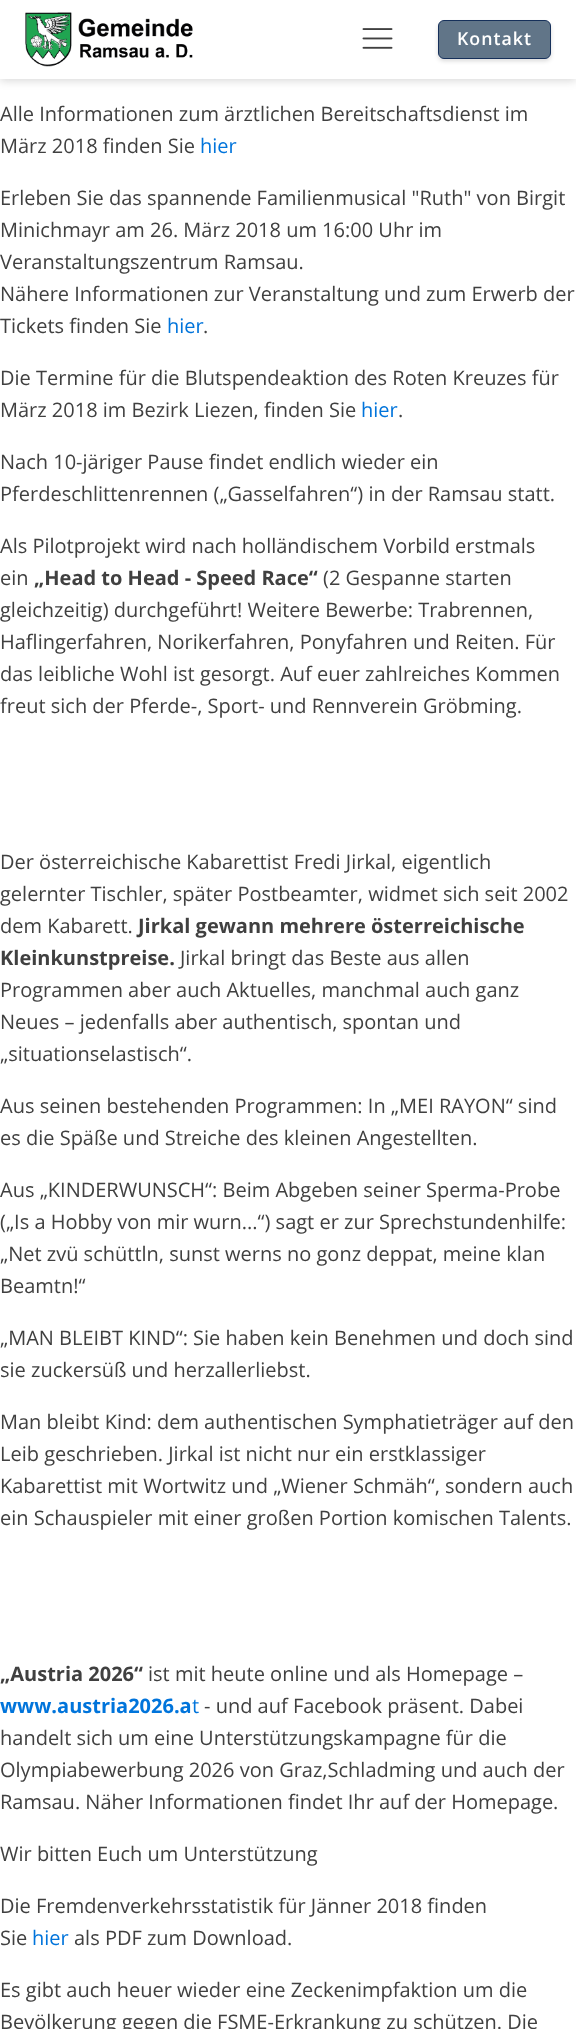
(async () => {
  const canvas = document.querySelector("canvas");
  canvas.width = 576;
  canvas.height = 2029;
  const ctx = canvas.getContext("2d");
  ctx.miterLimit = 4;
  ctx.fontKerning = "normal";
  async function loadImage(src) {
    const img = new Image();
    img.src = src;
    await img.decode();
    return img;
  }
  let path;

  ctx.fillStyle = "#ffffff";
  ctx.fillRect(0, 0, 576, 2029);
  ctx.fillStyle = "rgba(0, 0, 0, 0.15)";
  ctx.filter = "blur(4px)";
  ctx.beginPath();
  ctx.rect(0, 3, 576, 78);
  ctx.fill();
  ctx.filter = "none";
  ctx.fillStyle = "#ffffff";
  ctx.fillRect(0, 0, 576, 79);
  ctx.drawImage(await loadImage("img/1.png"), 25, 12, 168, 55);
  ctx.drawImage(await loadImage("img/2.png"), 362, 28, 31, 21);
  ctx.save();
  path = new Path2D("M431 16H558V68H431ZM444 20H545C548.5 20 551 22.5 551 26V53C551 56.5 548.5 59 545 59H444C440.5 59 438 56.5 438 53V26C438 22.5 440.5 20 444 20Z");
  ctx.clip(path, "evenodd");
  ctx.fillStyle = "rgba(0, 0, 0, 0.15)";
  ctx.filter = "blur(2px)";
  ctx.beginPath();
  ctx.roundRect(438, 23, 113, 38, 6);
  ctx.fill();
  ctx.filter = "none";
  ctx.restore();
  ctx.fillStyle = "rgba(58, 82, 106, 0.8)";
  ctx.beginPath();
  ctx.roundRect(438.5, 20.5, 112, 38, 5.5);
  ctx.fill();
  ctx.strokeStyle = "#16305a";
  ctx.stroke();
  ctx.letterSpacing = "1px";
  ctx.font = "600 17.75px Open Sans";
  ctx.fillStyle = "#ffffff";
  ctx.fillText("Kontakt", 457, 45);
  ctx.letterSpacing = "0px";
  ctx.font = "20px Open Sans";
  ctx.fillStyle = "#404040";
  ctx.fillText("Alle Informationen zum ärztlichen Bereitschaftsdienst im", 0, 121);
  ctx.fillText("März 2018 finden Sie", 0, 153);
  ctx.fillStyle = "#0074db";
  ctx.fillText("hier", 200, 153);
  ctx.fillStyle = "#404040";
  for (const [text, x, y] of [
    ["Erleben Sie das spannende Familienmusical \"Ruth\" von Birgit", 0, 205],
    ["Minichmayr am 26. März 2018 um 16:00 Uhr im", 0, 237],
    ["Veranstaltungszentrum Ramsau.", 0, 269],
    ["Nähere Informationen zur Veranstaltung und zum Erwerb der", 0, 301],
    ["Tickets finden Sie", 0, 333],
  ]) {
    ctx.fillText(text, x, y);
  }
  ctx.fillStyle = "#0074db";
  ctx.fillText("hier", 167, 333);
  ctx.fillStyle = "#404040";
  for (const [text, x, y] of [
    [".", 203, 333],
    ["Die Termine für die Blutspendeaktion des Roten Kreuzes für", 0, 385],
    ["März 2018 im Bezirk Liezen, finden Sie", 0, 417],
  ]) {
    ctx.fillText(text, x, y);
  }
  ctx.fillStyle = "#0074db";
  ctx.fillText("hier", 361, 417);
  ctx.fillStyle = "#404040";
  for (const [text, x, y] of [
    [".", 398, 417],
    ["Nach 10-järiger Pause findet endlich wieder ein", 0, 469],
    ["Pferdeschlittenrennen („Gasselfahren“) in der Ramsau statt.", 0, 501],
    ["Als Pilotprojekt wird nach holländischem Vorbild erstmals", 0, 553],
    ["ein", 0, 585],
  ]) {
    ctx.fillText(text, x, y);
  }
  ctx.font = "bold 20px Open Sans";
  ctx.fillText("„Head to Head - Speed Race“", 34, 585);
  ctx.font = "20px Open Sans";
  for (const [text, x, y] of [
    ["(2 Gespanne starten", 323, 585],
    ["gleichzeitig) durchgeführt! Weitere Bewerbe: Trabrennen,", 0, 617],
    ["Haflingerfahren, Norikerfahren, Ponyfahren und Reiten. Für", 0, 649],
    ["das leibliche Wohl ist gesorgt. Auf euer zahlreiches Kommen", 0, 681],
    ["freut sich der Pferde-, Sport- und Rennverein Gröbming.", 0, 713],
    ["Der österreichische Kabarettist Fredi Jirkal, eigentlich", 0, 869],
    ["gelernter Tischler, später Postbeamter, widmet sich seit 2002", 0, 901],
    ["dem Kabarett.", 0, 933],
  ]) {
    ctx.fillText(text, x, y);
  }
  ctx.font = "bold 20px Open Sans";
  ctx.fillText("Jirkal gewann mehrere österreichische", 138, 933);
  ctx.fillText("Kleinkunstpreise.", 0, 965);
  ctx.font = "20px Open Sans";
  for (const [text, x, y] of [
    ["Jirkal bringt das Beste aus allen", 180, 965],
    ["Programmen aber auch Aktuelles, manchmal auch ganz", 0, 997],
    ["Neues – jedenfalls aber authentisch, spontan und", 0, 1029],
    ["„situationselastisch“.", 0, 1061],
    ["Aus seinen bestehenden Programmen: In „MEI RAYON“ sind", 0, 1113],
    ["es die Späße und Streiche des kleinen Angestellten.", 0, 1145],
    ["Aus „KINDERWUNSCH“: Beim Abgeben seiner Sperma-Probe", 0, 1197],
    ["(„Is a Hobby von mir wurn...“) sagt er zur Sprechstundenhilfe:", 0, 1229],
    ["„Net zvü schüttln, sunst werns no gonz deppat, meine klan", 0, 1261],
    ["Beamtn!“", 0, 1293],
    ["„MAN BLEIBT KIND“: Sie haben kein Benehmen und doch sind", 0, 1345],
    ["sie zuckersüß und herzallerliebst.", 0, 1377],
    ["Man bleibt Kind: dem authentischen Symphatieträger auf den", 0, 1429],
    ["Leib geschrieben. Jirkal ist nicht nur ein erstklassiger", 0, 1461],
    ["Kabarettist mit Wortwitz und „Wiener Schmäh“, sondern auch", 0, 1493],
    ["ein Schauspieler mit einer großen Portion komischen Talents.", 0, 1525],
  ]) {
    ctx.fillText(text, x, y);
  }
  ctx.font = "bold 20px Open Sans";
  ctx.fillText("„Austria 2026“", 0, 1681);
  ctx.font = "20px Open Sans";
  ctx.fillText("ist mit heute online und als Homepage –", 148, 1681);
  ctx.font = "bold 20px Open Sans";
  ctx.fillStyle = "#0074db";
  ctx.fillText("www.austria2026.a", 0, 1713);
  ctx.font = "20px Open Sans";
  ctx.fillText("t", 192, 1713);
  ctx.fillStyle = "#404040";
  for (const [text, x, y] of [
    ["- und auf Facebook präsent. Dabei", 204, 1713],
    ["handelt sich um eine Unterstützungskampagne für die", 0, 1745],
    ["Olympiabewerbung 2026 von Graz,Schladming und auch der", 0, 1777],
    ["Ramsau. Näher Informationen findet Ihr auf der Homepage.", 0, 1809],
    ["Wir bitten Euch um Unterstützung", 0, 1861],
    ["Die Fremdenverkehrsstatistik für Jänner 2018 finden", 0, 1913],
    ["Sie", 0, 1945],
  ]) {
    ctx.fillText(text, x, y);
  }
  ctx.fillStyle = "#0074db";
  ctx.fillText("hier", 32, 1945);
  ctx.fillStyle = "#404040";
  for (const [text, x, y] of [
    ["als PDF zum Download.", 74, 1945],
    ["Es gibt auch heuer wieder eine Zeckenimpfaktion um die", 0, 1997],
    ["Bevölkerung gegen die FSME-Erkrankung zu schützen. Die", 0, 2029],
  ]) {
    ctx.fillText(text, x, y);
  }
})();
